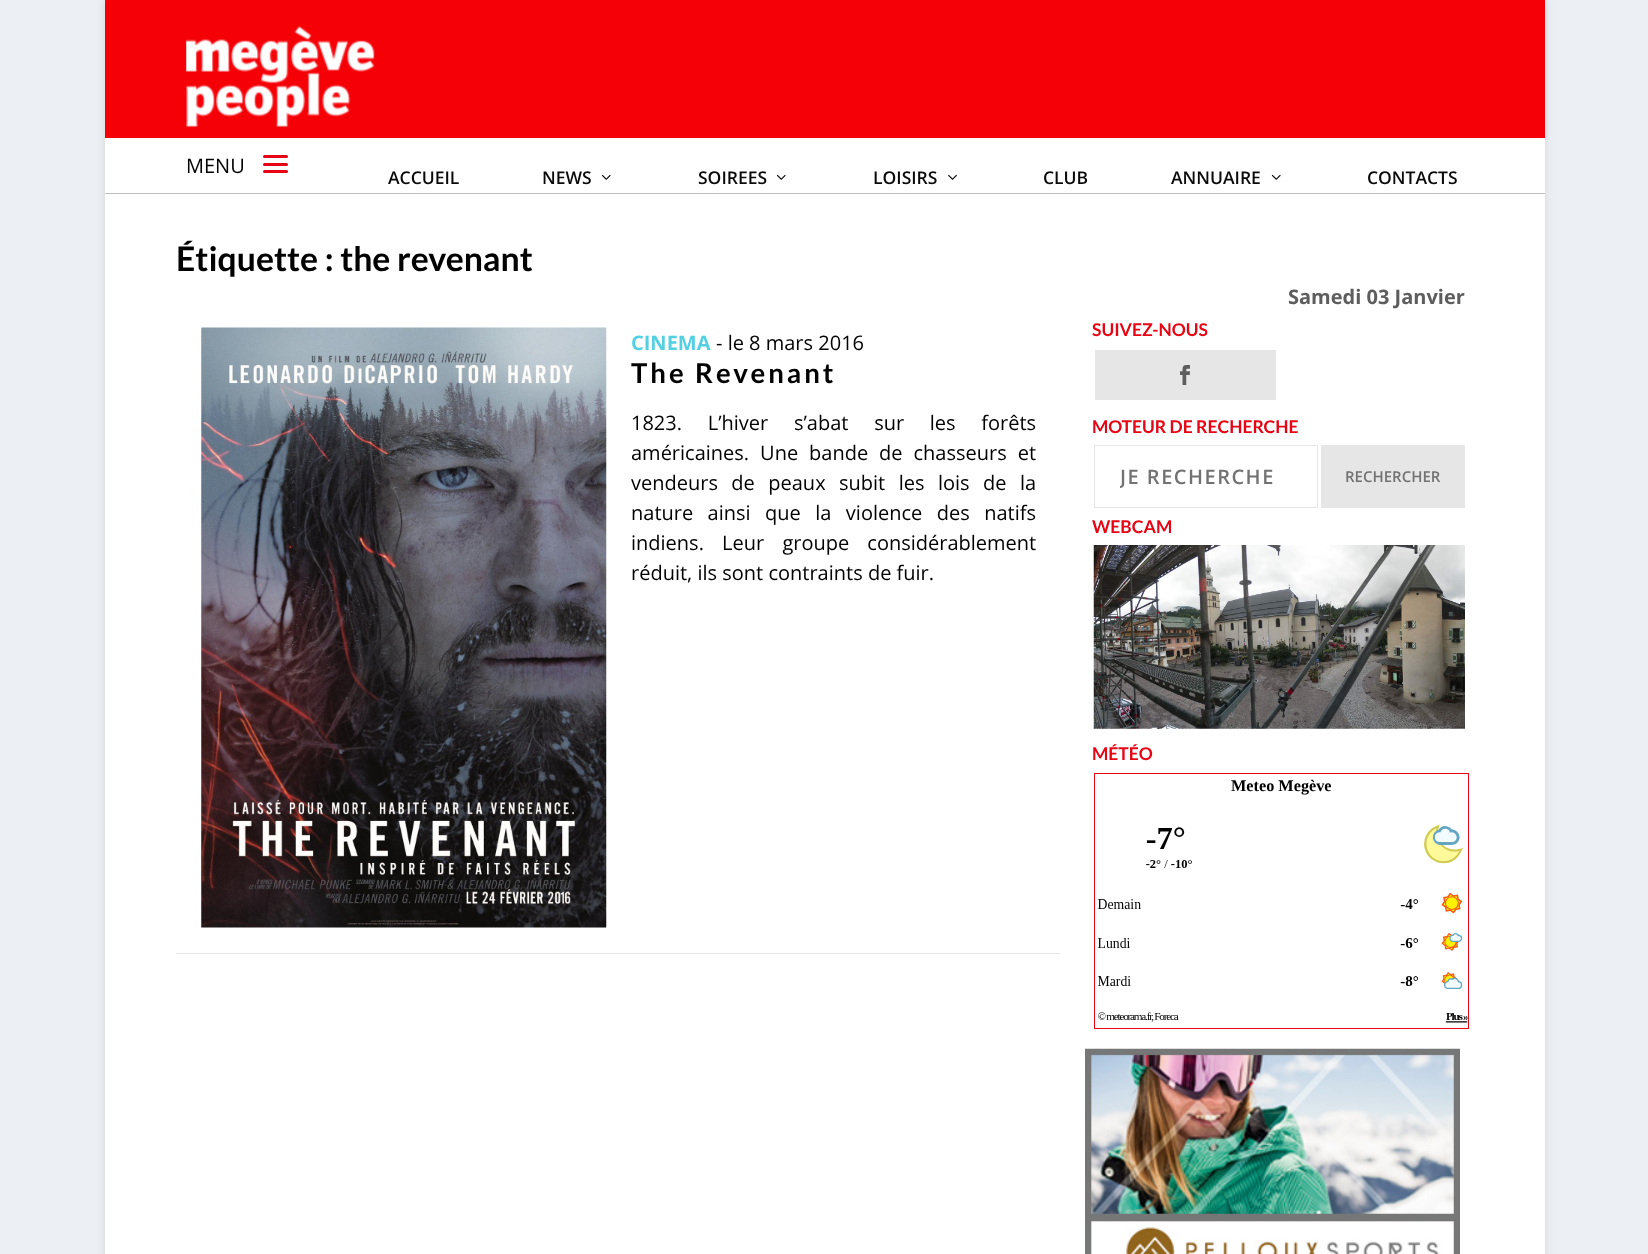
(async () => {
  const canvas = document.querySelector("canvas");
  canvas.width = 1648;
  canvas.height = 1254;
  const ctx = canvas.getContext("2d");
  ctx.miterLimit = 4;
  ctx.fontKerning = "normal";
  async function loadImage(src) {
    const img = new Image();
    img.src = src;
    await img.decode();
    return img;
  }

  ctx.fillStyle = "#ecf0f5";
  ctx.fillRect(0, 0, 1648, 1254);
  ctx.fillStyle = "rgba(0, 0, 0, 0.1)";
  ctx.filter = "blur(4px)";
  ctx.beginPath();
  ctx.rect(105, 1, 1440, 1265);
  ctx.fill();
  ctx.filter = "none";
  ctx.fillStyle = "#ffffff";
  ctx.fillRect(105, 194, 1440, 1060);
  ctx.fillStyle = "#f60008";
  ctx.fillRect(105, 0, 1440, 138);
  ctx.drawImage(await loadImage("img/1.png"), 186, 25, 189, 102);
  ctx.fillStyle = "#ffffff";
  ctx.fillRect(105, 138, 1440, 55);
  ctx.fillStyle = "#c0c0c0";
  ctx.fillRect(105, 193, 1440, 1);
  ctx.fillStyle = "#e50515";
  ctx.beginPath();
  ctx.roundRect(263, 155, 25, 3, 1.5);
  ctx.fill();
  ctx.beginPath();
  ctx.roundRect(263, 163, 25, 3, 1.5);
  ctx.fill();
  ctx.beginPath();
  ctx.roundRect(263, 170, 25, 3, 1.5);
  ctx.fill();
  ctx.drawImage(await loadImage("img/2.png"), 601, 174, 10, 6);
  ctx.drawImage(await loadImage("img/2.png"), 776, 174, 10, 6);
  ctx.drawImage(await loadImage("img/3.png"), 948, 174, 9, 6);
  ctx.drawImage(await loadImage("img/2.png"), 1271, 174, 10, 6);
  ctx.fillStyle = "#e6e6e6";
  ctx.fillRect(176, 953, 884, 1);
  ctx.drawImage(await loadImage("img/4.png"), 201, 327, 406, 601);
  ctx.fillRect(1095, 350, 181, 50);
  ctx.drawImage(await loadImage("img/5.png"), 1180, 365, 10, 20);
  ctx.strokeStyle = "#e6e6e6";
  ctx.strokeRect(1094.5, 445.5, 223, 62);
  ctx.fillRect(1321, 445, 144, 63);
  ctx.drawImage(await loadImage("img/6.png"), 1093, 545, 372, 184);
  ctx.strokeStyle = "#e50515";
  ctx.strokeRect(1094.5, 773.5, 374, 255);
  ctx.drawImage(await loadImage("img/7.png"), 1097, 824, 371, 199);
  ctx.drawImage(await loadImage("img/8.png"), 1085, 1048, 375, 206);
  ctx.font = "20px Open Sans";
  ctx.fillStyle = "#000000";
  ctx.fillText("MENU", 186, 173);
  ctx.font = "600 17.5px Open Sans";
  ctx.fillStyle = "#0a0a0a";
  for (const [text, x, y] of [
    ["ACCUEIL", 388, 184],
    ["NEWS", 542, 184],
    ["SOIREES", 698, 184],
    ["LOISIRS", 873, 184],
    ["CLUB", 1043, 184],
    ["ANNUAIRE", 1171, 184],
    ["CONTACTS", 1367, 184],
  ]) {
    ctx.fillText(text, x, y);
  }
  ctx.font = "bold 33.75px Lato";
  ctx.fillStyle = "#000000";
  ctx.fillText("Étiquette : the revenant", 176, 271);
  ctx.font = "bold 20px Open Sans";
  ctx.fillStyle = "#54d0e2";
  ctx.fillText("CINEMA", 631, 350);
  ctx.font = "20px Open Sans";
  ctx.fillStyle = "#000000";
  ctx.fillText("- le 8 mars 2016", 716, 350);
  ctx.letterSpacing = "3px";
  ctx.font = "bold 27.5px Lato";
  ctx.fillText("The Revenant", 631, 383);
  ctx.letterSpacing = "0px";
  ctx.wordSpacing = "20.5px";
  ctx.font = "20px Open Sans";
  ctx.fillText("1823. L’hiver s’abat sur les forêts", 631, 430);
  ctx.wordSpacing = "5.75px";
  ctx.fillText("américaines. Une bande de chasseurs et", 631, 460);
  ctx.wordSpacing = "8.25px";
  ctx.fillText("vendeurs de peaux subit les lois de la", 631, 490);
  ctx.wordSpacing = "9.25px";
  ctx.fillText("nature ainsi que la violence des natifs", 631, 520);
  ctx.wordSpacing = "13px";
  ctx.fillText("indiens. Leur groupe considérablement", 631, 550);
  ctx.wordSpacing = "0px";
  ctx.fillText("réduit, ils sont contraints de fuir.", 631, 580);
  ctx.font = "bold 20px Open Sans";
  ctx.fillStyle = "#5d5d5d";
  ctx.fillText("Samedi 03 Janvier", 1288, 304);
  ctx.font = "bold 17.5px Lato";
  ctx.fillStyle = "#e50515";
  ctx.fillText("SUIVEZ-NOUS", 1092, 336);
  ctx.fillText("MOTEUR DE RECHERCHE", 1092, 433);
  ctx.save();
  ctx.beginPath();
  ctx.rect(1120, 463, 171, 27);
  ctx.clip();
  ctx.letterSpacing = "1.5px";
  ctx.font = "600 20px Open Sans";
  ctx.fillStyle = "#727272";
  ctx.fillText("JE RECHERCHE", 1120, 484);
  ctx.restore();
  ctx.font = "600 15px Open Sans";
  ctx.fillStyle = "#727272";
  ctx.fillText("RECHERCHER", 1345, 482);
  ctx.font = "bold 17.5px Lato";
  ctx.fillStyle = "#e50515";
  ctx.fillText("WEBCAM", 1092, 533);
  ctx.fillText("MÉTÉO", 1092, 760);
  ctx.font = "bold 16.25px Liberation Serif";
  ctx.fillStyle = "#000000";
  ctx.fillText("Meteo Megève", 1231, 791);
})();
